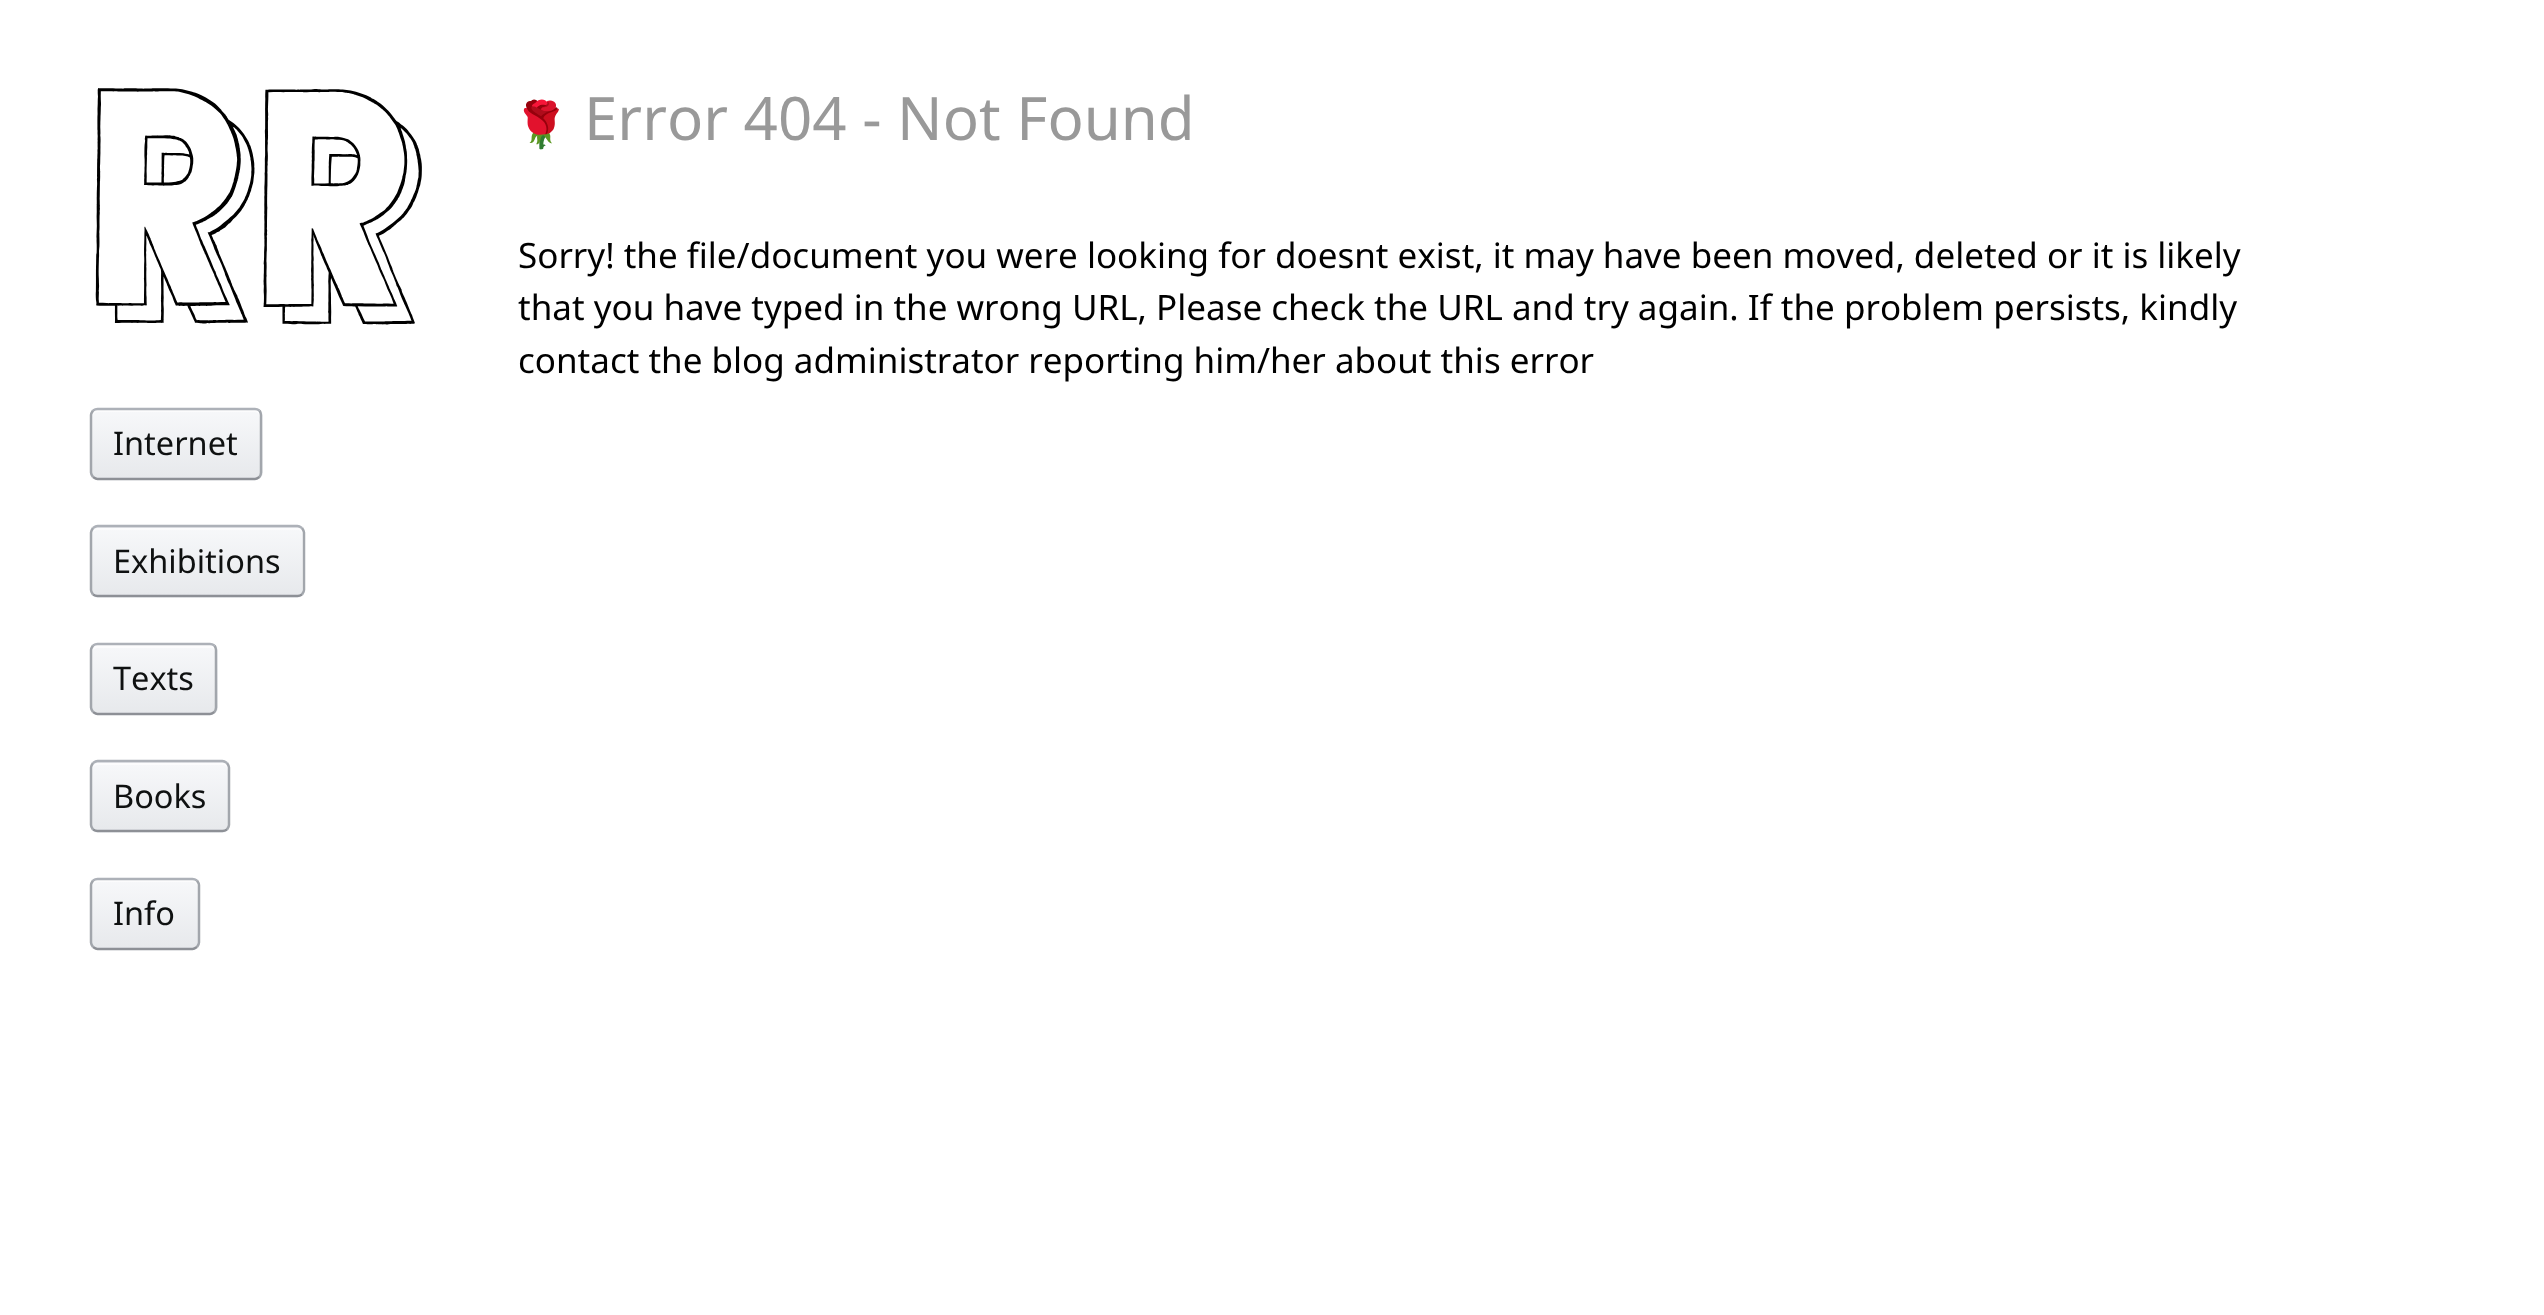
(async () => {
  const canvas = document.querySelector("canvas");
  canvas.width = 2544;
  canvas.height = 1315;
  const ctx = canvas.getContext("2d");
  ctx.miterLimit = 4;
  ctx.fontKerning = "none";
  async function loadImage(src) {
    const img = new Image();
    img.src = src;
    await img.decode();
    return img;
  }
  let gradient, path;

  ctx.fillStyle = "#ffffff";
  ctx.fillRect(0, 0, 2544, 1315);
  ctx.drawImage(await loadImage("img/1.png"), 95, 88, 327, 237);
  ctx.save();
  ctx.beginPath();
  ctx.roundRect(90, 408, 173, 72, 8);
  ctx.clip();
  gradient = ctx.createLinearGradient(176, 410, 176, 478);
  gradient.addColorStop(0, "#f7f8fa");
  gradient.addColorStop(1, "#e7e9ec");
  ctx.fillStyle = gradient;
  ctx.fillRect(90, 410, 173, 68);
  gradient = ctx.createLinearGradient(176, 478, 176, 545);
  gradient.addColorStop(0, "#f7f8fa");
  gradient.addColorStop(1, "#e7e9ec");
  ctx.fillStyle = gradient;
  ctx.fillRect(90, 478, 173, 2);
  ctx.restore();
  ctx.fillStyle = "#fcfcfd";
  path = new Path2D("M98 412H255C258 412 260 415 260 418V415C260 412 258 410 255 410H98C95 410 93 412 93 415C94 413 96 412 98 412Z");
  ctx.fill(path);
  path = new Path2D("M93 410.5C94.5 409.5 96 409 97.5 409H255C256.5 409 258 409.5 259.5 410.5");
  ctx.strokeStyle = "#adb1b8";
  ctx.lineWidth = 2.5;
  ctx.stroke(path);
  path = new Path2D("M259.5 410.5C260.5 412 261 413.5 261 415V472.5C261 474 260.5 475.5 259.5 477");
  ctx.strokeStyle = "#a2a6ac";
  ctx.stroke(path);
  path = new Path2D("M259.5 477C258 478 256.5 479 255 479H97.5C96 479 94.5 478 93 477");
  ctx.strokeStyle = "#8d9096";
  ctx.stroke(path);
  path = new Path2D("M93 477C92 475.5 91 474 91 472.5V415C91 413.5 92 412 93 410.5");
  ctx.strokeStyle = "#a2a6ac";
  ctx.stroke(path);
  ctx.save();
  ctx.beginPath();
  ctx.roundRect(90, 525, 215, 73, 8);
  ctx.clip();
  gradient = ctx.createLinearGradient(198, 460, 198, 528);
  gradient.addColorStop(0, "#f7f8fa");
  gradient.addColorStop(1, "#e7e9ec");
  ctx.fillStyle = gradient;
  ctx.fillRect(90, 525, 215, 3);
  gradient = ctx.createLinearGradient(198, 528, 198, 595);
  gradient.addColorStop(0, "#f7f8fa");
  gradient.addColorStop(1, "#e7e9ec");
  ctx.fillStyle = gradient;
  ctx.fillRect(90, 528, 215, 67);
  gradient = ctx.createLinearGradient(198, 595, 198, 663);
  gradient.addColorStop(0, "#f7f8fa");
  gradient.addColorStop(1, "#e7e9ec");
  ctx.fillStyle = gradient;
  ctx.fillRect(90, 595, 215, 3);
  ctx.restore();
  ctx.fillStyle = "rgba(255, 255, 255, 0.6)";
  path = new Path2D("M98 530H298C300 530 302 532 302 535V593C303 592 303 591 303 590V533C303 530 301 528 298 528H98C96 528 93 530 93 532C94 531 96 530 98 530Z");
  ctx.fill(path);
  path = new Path2D("M93 528C94.5 527 96 526 97.5 526H297.5C299 526 300.5 527 302 528");
  ctx.strokeStyle = "#adb1b8";
  ctx.stroke(path);
  path = new Path2D("M302 528C303 529.5 304 531 304 532.5V590C304 591.5 303 593 302 594.5");
  ctx.strokeStyle = "#a2a6ac";
  ctx.stroke(path);
  path = new Path2D("M302 594.5C300.5 595.5 299 596 297.5 596H97.5C96 596 94.5 595.5 93 594.5");
  ctx.strokeStyle = "#8d9096";
  ctx.stroke(path);
  path = new Path2D("M93 594.5C92 593 91 591.5 91 590V532.5C91 531 92 529.5 93 528");
  ctx.strokeStyle = "#a2a6ac";
  ctx.stroke(path);
  ctx.save();
  ctx.beginPath();
  ctx.roundRect(90, 643, 128, 72, 8);
  ctx.clip();
  gradient = ctx.createLinearGradient(154, 645, 154, 713);
  gradient.addColorStop(0, "#f7f8fa");
  gradient.addColorStop(1, "#e7e9ec");
  ctx.fillStyle = gradient;
  ctx.fillRect(90, 645, 128, 68);
  gradient = ctx.createLinearGradient(154, 713, 154, 780);
  gradient.addColorStop(0, "#f7f8fa");
  gradient.addColorStop(1, "#e7e9ec");
  ctx.fillStyle = gradient;
  ctx.fillRect(90, 713, 128, 2);
  ctx.restore();
  ctx.fillStyle = "#fcfcfd";
  path = new Path2D("M98 648H210C213 648 215 650 215 652V650C215 647 213 645 210 645H98C95 645 93 647 93 650C94 649 96 648 98 648Z");
  ctx.fill(path);
  path = new Path2D("M93 645.5C94.5 644.5 96 644 97.5 644H210C211.5 644 213 644.5 214.5 645.5");
  ctx.strokeStyle = "#adb1b8";
  ctx.stroke(path);
  path = new Path2D("M214.5 645.5C215.5 647 216 648.5 216 650V707.5C216 709 215.5 710.5 214.5 712");
  ctx.strokeStyle = "#a2a6ac";
  ctx.stroke(path);
  path = new Path2D("M214.5 712C213 713 211.5 714 210 714H97.5C96 714 94.5 713 93 712");
  ctx.strokeStyle = "#8d9096";
  ctx.stroke(path);
  path = new Path2D("M93 712C92 710.5 91 709 91 707.5V650C91 648.5 92 647 93 645.5");
  ctx.strokeStyle = "#a2a6ac";
  ctx.stroke(path);
  ctx.save();
  ctx.beginPath();
  ctx.roundRect(90, 760, 140, 73, 8);
  ctx.clip();
  gradient = ctx.createLinearGradient(160, 695, 160, 763);
  gradient.addColorStop(0, "#f7f8fa");
  gradient.addColorStop(1, "#e7e9ec");
  ctx.fillStyle = gradient;
  ctx.fillRect(90, 760, 140, 3);
  gradient = ctx.createLinearGradient(160, 763, 160, 830);
  gradient.addColorStop(0, "#f7f8fa");
  gradient.addColorStop(1, "#e7e9ec");
  ctx.fillStyle = gradient;
  ctx.fillRect(90, 763, 140, 67);
  gradient = ctx.createLinearGradient(160, 830, 160, 898);
  gradient.addColorStop(0, "#f7f8fa");
  gradient.addColorStop(1, "#e7e9ec");
  ctx.fillStyle = gradient;
  ctx.fillRect(90, 830, 140, 3);
  ctx.restore();
  path = new Path2D("M98 765H222C225 765 228 767 228 770V768C228 765 226 763 223 763H98C96 763 93 765 93 767C94 766 96 765 98 765Z");
  ctx.fill(path);
  path = new Path2D("M93 763C94.5 762 96 761 97.5 761H222.5C224 761 225.5 762 227 763");
  ctx.strokeStyle = "#adb1b8";
  ctx.stroke(path);
  path = new Path2D("M227 763C228 764.5 229 766 229 767.5V825C229 826.5 228 828 227 829.5");
  ctx.strokeStyle = "#a2a6ac";
  ctx.stroke(path);
  path = new Path2D("M227 829.5C225.5 830.5 224 831 222.5 831H97.5C96 831 94.5 830.5 93 829.5");
  ctx.strokeStyle = "#8d9096";
  ctx.stroke(path);
  path = new Path2D("M93 829.5C92 828 91 826.5 91 825V767.5C91 766 92 764.5 93 763");
  ctx.strokeStyle = "#a2a6ac";
  ctx.stroke(path);
  ctx.save();
  ctx.beginPath();
  ctx.roundRect(90, 878, 110, 72, 8);
  ctx.clip();
  gradient = ctx.createLinearGradient(145, 880, 145, 948);
  gradient.addColorStop(0, "#f7f8fa");
  gradient.addColorStop(1, "#e7e9ec");
  ctx.fillStyle = gradient;
  ctx.fillRect(90, 880, 110, 68);
  ctx.restore();
  path = new Path2D("M98 882H192C195 882 198 885 198 888V885C198 882 196 880 193 880H98C95 880 93 882 93 885C94 883 96 882 98 882Z");
  ctx.fill(path);
  path = new Path2D("M93 880.5C94.5 879.5 96 879 97.5 879H192.5C194 879 195.5 879.5 197 880.5");
  ctx.strokeStyle = "#adb1b8";
  ctx.stroke(path);
  path = new Path2D("M197 880.5C198 882 199 883.5 199 885V942.5C199 944 198 945.5 197 947");
  ctx.strokeStyle = "#a2a6ac";
  ctx.stroke(path);
  path = new Path2D("M197 947C195.5 948 194 949 192.5 949H97.5C96 949 94.5 948 93 947");
  ctx.strokeStyle = "#8d9096";
  ctx.stroke(path);
  path = new Path2D("M93 947C92 945.5 91 944 91 942.5V885C91 883.5 92 882 93 880.5");
  ctx.strokeStyle = "#a2a6ac";
  ctx.stroke(path);
  ctx.font = "45px Noto Color Emoji";
  ctx.fillStyle = "#999999";
  ctx.fillText("🌹", 513, 140);
  ctx.font = "60px Noto Sans";
  ctx.fillText("Error 404 - Not Found", 584, 140);
  ctx.font = "35px Noto Sans";
  ctx.fillStyle = "#000000";
  for (const [text, x, y] of [
    ["Sorry! the file/document you were looking for doesnt exist, it may have been moved, deleted or it is likely", 518, 268],
    ["that you have typed in the wrong URL, Please check the URL and try again. If the problem persists, kindly", 518, 320],
    ["contact the blog administrator reporting him/her about this error", 518, 373],
  ]) {
    ctx.fillText(text, x, y);
  }
  ctx.font = "32.5px Noto Sans";
  ctx.fillStyle = "#0f1111";
  for (const [text, x, y] of [
    ["Internet", 113, 455],
    ["Exhibitions", 113, 573],
    ["Texts", 113, 690],
    ["Books", 113, 808],
    ["Info", 113, 925],
  ]) {
    ctx.fillText(text, x, y);
  }
})();
